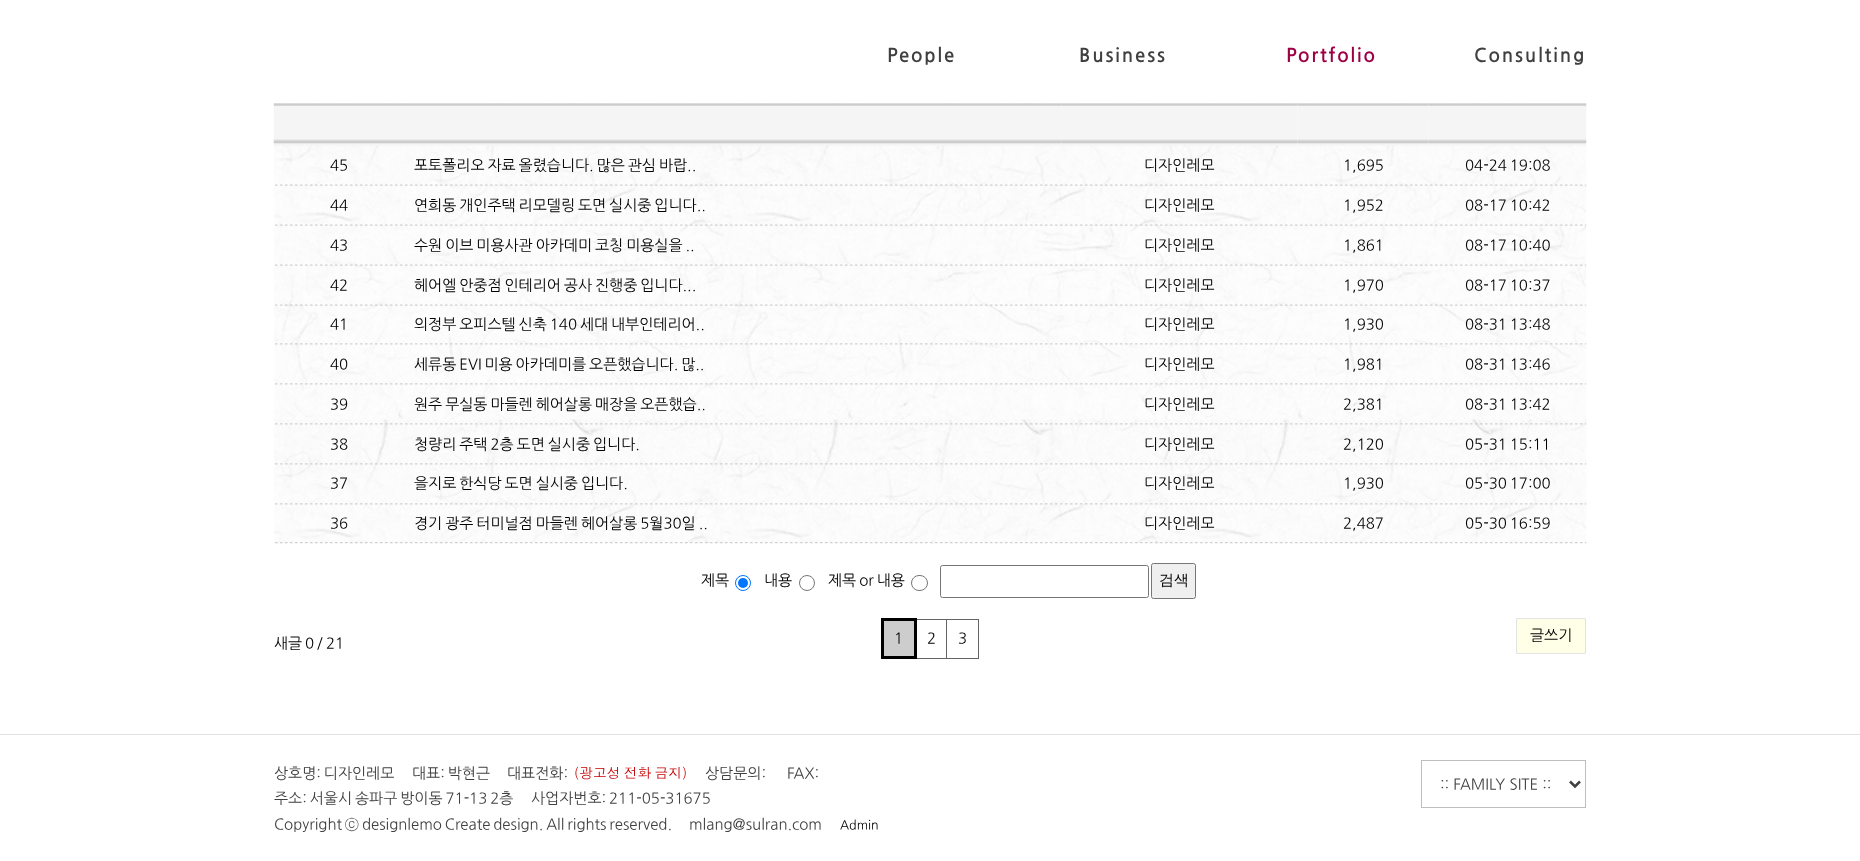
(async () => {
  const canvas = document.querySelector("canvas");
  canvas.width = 1860;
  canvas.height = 861;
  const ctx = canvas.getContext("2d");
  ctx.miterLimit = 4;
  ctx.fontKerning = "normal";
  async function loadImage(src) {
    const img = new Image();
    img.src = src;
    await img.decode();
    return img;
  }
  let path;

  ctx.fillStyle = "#ffffff";
  ctx.fillRect(0, 0, 1860, 861);
  ctx.fillStyle = "#dfe1e4";
  ctx.fillRect(0, 734, 1860, 1);
  ctx.drawImage(await loadImage("img/1.png"), 274, 103, 1313, 441);
  ctx.drawImage(await loadImage("img/2.png"), 273, 103, 132, 43);
  ctx.drawImage(await loadImage("img/3.png"), 405, 103, 657, 43);
  ctx.drawImage(await loadImage("img/4.png"), 1061, 103, 237, 43);
  ctx.drawImage(await loadImage("img/5.png"), 1297, 103, 132, 43);
  ctx.drawImage(await loadImage("img/6.png"), 1429, 103, 158, 43);
  ctx.drawImage(await loadImage("img/7.png"), 275, 184, 1312, 2);
  ctx.drawImage(await loadImage("img/8.png"), 275, 224, 1312, 2);
  ctx.drawImage(await loadImage("img/9.png"), 275, 264, 1312, 2);
  ctx.drawImage(await loadImage("img/10.png"), 275, 304, 1312, 2);
  ctx.drawImage(await loadImage("img/11.png"), 275, 343, 1312, 2);
  ctx.drawImage(await loadImage("img/12.png"), 275, 383, 1312, 2);
  ctx.drawImage(await loadImage("img/13.png"), 275, 423, 1312, 2);
  ctx.drawImage(await loadImage("img/14.png"), 275, 463, 1312, 2);
  ctx.drawImage(await loadImage("img/15.png"), 275, 503, 1312, 2);
  ctx.drawImage(await loadImage("img/16.png"), 274, 542, 1313, 2);
  ctx.beginPath();
  ctx.arc(743, 583, 7.5, 0, Math.PI * 2);
  ctx.strokeStyle = "#0075ff";
  ctx.stroke();
  ctx.fillStyle = "#0075ff";
  ctx.beginPath();
  ctx.arc(743, 583, 5, 0, Math.PI * 2);
  ctx.fill();
  ctx.beginPath();
  ctx.arc(807, 583, 7.5, 0, Math.PI * 2);
  ctx.strokeStyle = "#767676";
  ctx.stroke();
  ctx.beginPath();
  ctx.roundRect(911.5, 575.5, 16, 15, 7.5);
  ctx.stroke();
  ctx.beginPath();
  ctx.roundRect(940.5, 565.5, 208, 32, 2);
  ctx.stroke();
  ctx.fillStyle = "#efefef";
  ctx.beginPath();
  ctx.roundRect(1151.5, 563.5, 44, 35, 2);
  ctx.fill();
  ctx.stroke();
  for (const [x, y, w, h, color] of [
    [884, 621, 30, 35, "#cdcdcd"],
    [946, 619, 33, 1, "#656565"],
    [978, 619, 1, 40, "#656565"],
    [946, 658, 33, 1, "#656565"],
    [946, 619, 1, 40, "#656565"],
    [915, 619, 33, 1, "#656565"],
    [881, 618, 35, 3, "#000000"],
    [915, 658, 33, 1, "#656565"],
    [914, 618, 3, 41, "#000000"],
    [881, 656, 35, 3, "#000000"],
    [881, 618, 3, 41, "#000000"],
  ]) {
    ctx.fillStyle = color;
    ctx.fillRect(x, y, w, h);
  }
  ctx.fillStyle = "#ffffe8";
  ctx.beginPath();
  ctx.rect(1516.5, 618.5, 69, 35);
  ctx.fill();
  ctx.strokeStyle = "#e3e3e3";
  ctx.stroke();
  ctx.strokeStyle = "#bdbec2";
  ctx.strokeRect(1421.5, 760.5, 164, 47);
  path = new Path2D("M1570 781.5L1575 786.5L1580 781.5");
  ctx.strokeStyle = "#404040";
  ctx.lineWidth = 2.5;
  ctx.stroke(path);
  ctx.letterSpacing = "1.9px";
  ctx.font = "bold 18.75px NanumGothic";
  ctx.fillStyle = "#404040";
  ctx.fillText("People", 887, 61);
  ctx.fillText("Business", 1079, 61);
  ctx.fillStyle = "#9d0046";
  ctx.fillText("Portfolio", 1286, 61);
  ctx.fillStyle = "#404040";
  ctx.fillText("Consulting", 1474, 61);
  ctx.letterSpacing = "0px";
  ctx.font = "15px NanumGothic";
  ctx.fillStyle = "#000000";
  ctx.fillText("45", 330, 170);
  ctx.wordSpacing = "-1.25px";
  ctx.fillText("포토폴리오 자료 올렸습니다. 많은 관심 바랍..", 414, 170);
  ctx.wordSpacing = "0px";
  ctx.fillText("디자인레모", 1144, 170);
  ctx.fillText("1,695", 1343, 170);
  ctx.wordSpacing = "-1.25px";
  ctx.fillText("04-24 19:08", 1465, 170);
  ctx.wordSpacing = "0px";
  ctx.fillText("44", 330, 210);
  ctx.wordSpacing = "-1.25px";
  ctx.fillText("연희동 개인주택 리모델링 도면 실시중 입니다..", 414, 210);
  ctx.wordSpacing = "0px";
  ctx.fillText("디자인레모", 1144, 210);
  ctx.fillText("1,952", 1343, 210);
  ctx.wordSpacing = "-1.25px";
  ctx.fillText("08-17 10:42", 1465, 210);
  ctx.wordSpacing = "0px";
  ctx.fillText("43", 330, 250);
  ctx.wordSpacing = "-1.25px";
  ctx.fillText("수원 이브 미용사관 아카데미 코칭 미용실을 ..", 414, 250);
  ctx.wordSpacing = "0px";
  ctx.fillText("디자인레모", 1144, 250);
  ctx.fillText("1,861", 1343, 250);
  ctx.wordSpacing = "-1.25px";
  ctx.fillText("08-17 10:40", 1465, 250);
  ctx.wordSpacing = "0px";
  ctx.fillText("42", 330, 290);
  ctx.wordSpacing = "-1.25px";
  ctx.fillText("헤어엘 안중점 인테리어 공사 진행중 입니다...", 414, 290);
  ctx.wordSpacing = "0px";
  ctx.fillText("디자인레모", 1144, 290);
  ctx.fillText("1,970", 1343, 290);
  ctx.wordSpacing = "-1.25px";
  ctx.fillText("08-17 10:37", 1465, 290);
  ctx.wordSpacing = "0px";
  ctx.fillText("41", 330, 329);
  ctx.wordSpacing = "-1.25px";
  ctx.fillText("의정부 오피스텔 신축 140 세대", 414, 329);
  ctx.wordSpacing = "0px";
  for (const [text, x, y] of [
    ["내부인테리어..", 611, 329],
    ["디자인레모", 1144, 329],
    ["1,930", 1343, 329],
  ]) {
    ctx.fillText(text, x, y);
  }
  ctx.wordSpacing = "-1.25px";
  ctx.fillText("08-31 13:48", 1465, 329);
  ctx.wordSpacing = "0px";
  ctx.fillText("40", 330, 369);
  ctx.wordSpacing = "-1.25px";
  ctx.fillText("세류동 EVI 미용 아카데미를 오픈했습니다. 많..", 414, 369);
  ctx.wordSpacing = "0px";
  ctx.fillText("디자인레모", 1144, 369);
  ctx.fillText("1,981", 1343, 369);
  ctx.wordSpacing = "-1.25px";
  ctx.fillText("08-31 13:46", 1465, 369);
  ctx.wordSpacing = "0px";
  ctx.fillText("39", 330, 409);
  ctx.wordSpacing = "-1.25px";
  ctx.fillText("원주 무실동 마들렌 헤어살롱 매장을 오픈했습..", 414, 409);
  ctx.wordSpacing = "0px";
  ctx.fillText("디자인레모", 1144, 409);
  ctx.fillText("2,381", 1343, 409);
  ctx.wordSpacing = "-1.25px";
  ctx.fillText("08-31 13:42", 1465, 409);
  ctx.wordSpacing = "0px";
  ctx.fillText("38", 330, 449);
  ctx.wordSpacing = "-1.25px";
  ctx.fillText("청량리 주택 2층 도면 실시중 입니다.", 414, 449);
  ctx.wordSpacing = "0px";
  ctx.fillText("디자인레모", 1144, 449);
  ctx.fillText("2,120", 1343, 449);
  ctx.wordSpacing = "-1.25px";
  ctx.fillText("05-31 15:11", 1465, 449);
  ctx.wordSpacing = "0px";
  ctx.fillText("37", 330, 488);
  ctx.wordSpacing = "-1.25px";
  ctx.fillText("을지로 한식당 도면 실시중 입니다.", 414, 488);
  ctx.wordSpacing = "0px";
  ctx.fillText("디자인레모", 1144, 488);
  ctx.fillText("1,930", 1343, 488);
  ctx.wordSpacing = "-1.25px";
  ctx.fillText("05-30 17:00", 1465, 488);
  ctx.wordSpacing = "0px";
  ctx.fillText("36", 330, 528);
  ctx.wordSpacing = "-1.25px";
  ctx.fillText("경기 광주 터미널점 마들렌 헤어살롱 5월30일 ..", 414, 528);
  ctx.wordSpacing = "0px";
  ctx.fillText("디자인레모", 1144, 528);
  ctx.fillText("2,487", 1343, 528);
  ctx.wordSpacing = "-1.25px";
  ctx.fillText("05-30 16:59", 1465, 528);
  ctx.wordSpacing = "0px";
  ctx.fillText("제목", 701, 585);
  ctx.fillText("내용", 764, 585);
  ctx.wordSpacing = "-1.25px";
  ctx.fillText("제목 or 내용", 828, 585);
  ctx.wordSpacing = "0px";
  ctx.font = "500 15px WenQuanYi Zen Hei";
  ctx.fillText("검색", 1159, 585);
  ctx.font = "15px NanumGothic";
  for (const [text, x, y] of [
    ["새글", 274, 648],
    ["0", 305, 648],
    ["/", 317, 648],
    ["21", 326, 648],
    ["1", 894, 643],
    ["2", 927, 643],
    ["3", 958, 643],
    ["글쓰기", 1530, 640],
  ]) {
    ctx.fillText(text, x, y);
  }
  ctx.wordSpacing = "-1.25px";
  ctx.fillStyle = "#404040";
  ctx.fillText("상호명: 디자인레모", 274, 778);
  ctx.fillText("대표: 박현근", 412, 778);
  ctx.wordSpacing = "0px";
  ctx.fillText("대표전화:", 507, 778);
  ctx.wordSpacing = "-1.25px";
  ctx.font = "13.75px Dotum";
  ctx.fillStyle = "#c40000";
  ctx.fillText("(광고성 전화 금지)", 574, 778);
  ctx.wordSpacing = "0px";
  ctx.font = "15px NanumGothic";
  ctx.fillStyle = "#404040";
  ctx.fillText("상담문의:", 705, 778);
  ctx.fillText("FAX:", 787, 778);
  ctx.wordSpacing = "-1.25px";
  for (const [text, x, y] of [
    ["주소: 서울시 송파구 방이동 71-13 2층", 274, 803],
    ["사업자번호: 211-05-31675", 531, 803],
    ["Copyright ⓒ designlemo Create design. All rights reserved.", 274, 829],
  ]) {
    ctx.fillText(text, x, y);
  }
  ctx.wordSpacing = "0px";
  ctx.fillText("mlang@sulran.com", 689, 829);
  ctx.font = "12.5px NanumGothic";
  ctx.fillStyle = "#000000";
  ctx.fillText("Admin", 840, 829);
  ctx.font = "15px NanumGothic";
  ctx.fillStyle = "#404040";
  ctx.fillText(":: FAMILY SITE ::", 1440, 789);
})();
